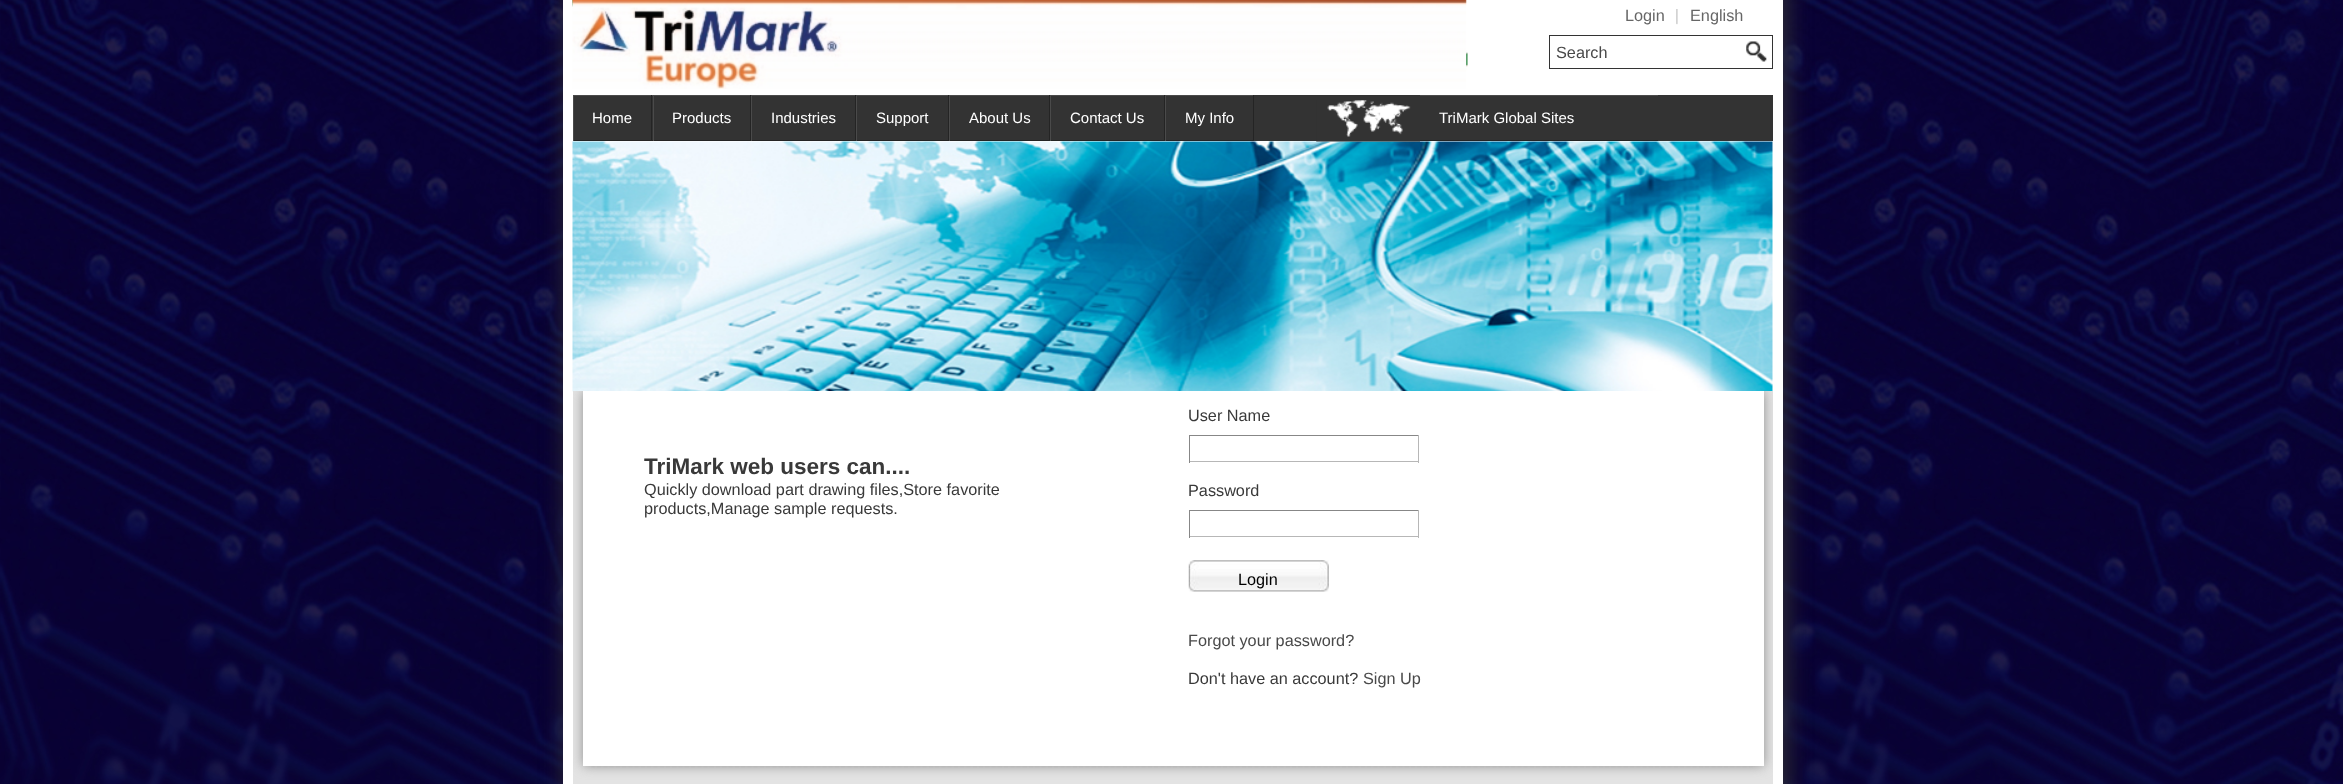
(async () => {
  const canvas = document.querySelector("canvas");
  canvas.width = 2343;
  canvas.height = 784;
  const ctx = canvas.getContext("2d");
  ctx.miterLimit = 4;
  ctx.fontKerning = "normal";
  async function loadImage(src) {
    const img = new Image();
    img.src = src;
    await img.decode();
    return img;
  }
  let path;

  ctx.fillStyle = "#ffffff";
  ctx.fillRect(0, 0, 2343, 784);
  ctx.drawImage(await loadImage("img/1.png"), 0, 0, 2343, 784);
  ctx.fillStyle = "#333333";
  ctx.filter = "blur(12.5px)";
  ctx.beginPath();
  ctx.rect(566, -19, 1220, 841);
  ctx.fill();
  ctx.filter = "none";
  ctx.fillStyle = "#ffffff";
  ctx.fillRect(563, 0, 1220, 784);
  ctx.drawImage(await loadImage("img/2.png"), 572, 0, 896, 86);
  ctx.drawImage(await loadImage("img/3.png"), 572, 0, 895, 89);
  ctx.drawImage(await loadImage("img/4.png"), 1676, 9, 2, 16);
  ctx.strokeStyle = "#333333";
  ctx.strokeRect(1549.5, 35.5, 223, 33);
  ctx.drawImage(await loadImage("img/5.png"), 1746, 41, 21, 21);
  for (const [x, y, w, h, color] of [
    [574, 95, 1199, 46, "#333333"],
    [573, 95, 681, 1, "#4a4a4a"],
    [651, 95, 1, 46, "#242424"],
    [573, 140, 80, 1, "#242424"],
    [573, 95, 1, 46, "#4a4a4a"],
    [750, 95, 1, 46, "#242424"],
    [653, 140, 98, 1, "#242424"],
    [653, 95, 1, 46, "#4a4a4a"],
    [855, 95, 1, 46, "#242424"],
    [751, 140, 105, 1, "#242424"],
    [751, 95, 1, 46, "#4a4a4a"],
    [948, 95, 1, 46, "#242424"],
    [856, 140, 93, 1, "#242424"],
    [856, 95, 1, 46, "#4a4a4a"],
    [1049, 95, 1, 46, "#242424"],
    [949, 140, 101, 1, "#242424"],
    [949, 95, 1, 46, "#4a4a4a"],
    [1164, 95, 1, 46, "#242424"],
    [1050, 140, 115, 1, "#242424"],
    [1050, 95, 1, 46, "#4a4a4a"],
    [1253, 95, 1, 46, "#242424"],
    [1165, 140, 89, 1, "#242424"],
    [1165, 95, 1, 46, "#4a4a4a"],
  ]) {
    ctx.fillStyle = color;
    ctx.fillRect(x, y, w, h);
  }
  ctx.drawImage(await loadImage("img/7.png"), 572, 141, 1201, 251);
  ctx.drawImage(await loadImage("img/6.png"), 1316, 100, 104, 42);
  for (const [x, y, w, h, color] of [
    [1420, 95, 238, 1, "#4a4a4a"],
    [1420, 140, 238, 1, "#242424"],
    [573, 391, 1200, 393, "#e3e3e3"],
  ]) {
    ctx.fillStyle = color;
    ctx.fillRect(x, y, w, h);
  }
  path = new Path2D("M591 767H1754");
  ctx.strokeStyle = "#dbdbdb";
  ctx.lineWidth = 1.2;
  ctx.setLineDash([3.75, 2.51]);
  ctx.stroke(path);
  ctx.save();
  ctx.beginPath();
  ctx.rect(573, 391, 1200, 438);
  ctx.clip();
  ctx.fillStyle = "#909090";
  ctx.filter = "blur(6px)";
  ctx.beginPath();
  ctx.rect(583, 391, 1181, 375);
  ctx.fill();
  ctx.filter = "none";
  ctx.restore();
  for (const [x, y, w, h, color] of [
    [583, 391, 1181, 375, "#ffffff"],
    [1189, 435, 230, 1, "#878787"],
    [1418, 435, 1, 28, "#b7b7b7"],
    [1189, 461, 230, 1, "#b7b7b7"],
    [1189, 435, 1, 28, "#878787"],
    [1189, 510, 230, 1, "#878787"],
    [1418, 510, 1, 28, "#b7b7b7"],
    [1189, 536, 230, 1, "#b7b7b7"],
    [1189, 510, 1, 28, "#878787"],
  ]) {
    ctx.fillStyle = color;
    ctx.fillRect(x, y, w, h);
  }
  ctx.drawImage(await loadImage("img/8.png"), 1188, 560, 141, 32);
  ctx.font = "16.25px Liberation Sans";
  ctx.fillStyle = "#666666";
  ctx.fillText("Login", 1625, 21);
  ctx.fillText("English", 1690, 21);
  ctx.fillStyle = "#494949";
  ctx.fillText("Search", 1556, 58);
  ctx.font = "15px Liberation Sans";
  ctx.fillStyle = "#ffffff";
  for (const [text, x, y] of [
    ["Home", 592, 123],
    ["Products", 672, 123],
    ["Industries", 771, 123],
    ["Support", 876, 123],
    ["About Us", 969, 123],
    ["Contact Us", 1070, 123],
    ["My Info", 1185, 123],
    ["TriMark Global Sites", 1439, 123],
  ]) {
    ctx.fillText(text, x, y);
  }
  ctx.font = "bold 22.5px Liberation Sans";
  ctx.fillStyle = "#393939";
  ctx.fillText("TriMark web users can....", 644, 474);
  ctx.font = "16.25px Liberation Sans";
  for (const [text, x, y] of [
    ["Quickly download part drawing files,Store favorite", 644, 495],
    ["products,Manage sample requests.", 644, 514],
    ["User Name", 1188, 421],
    ["Password", 1188, 496],
  ]) {
    ctx.fillText(text, x, y);
  }
  ctx.fillStyle = "#000000";
  ctx.fillText("Login", 1238, 585);
  ctx.fillStyle = "#494949";
  ctx.fillText("Forgot your password?", 1188, 646);
  ctx.fillStyle = "#393939";
  ctx.fillText("Don't have an account?", 1188, 684);
  ctx.fillStyle = "#494949";
  ctx.fillText("Sign Up", 1363, 684);
})();
